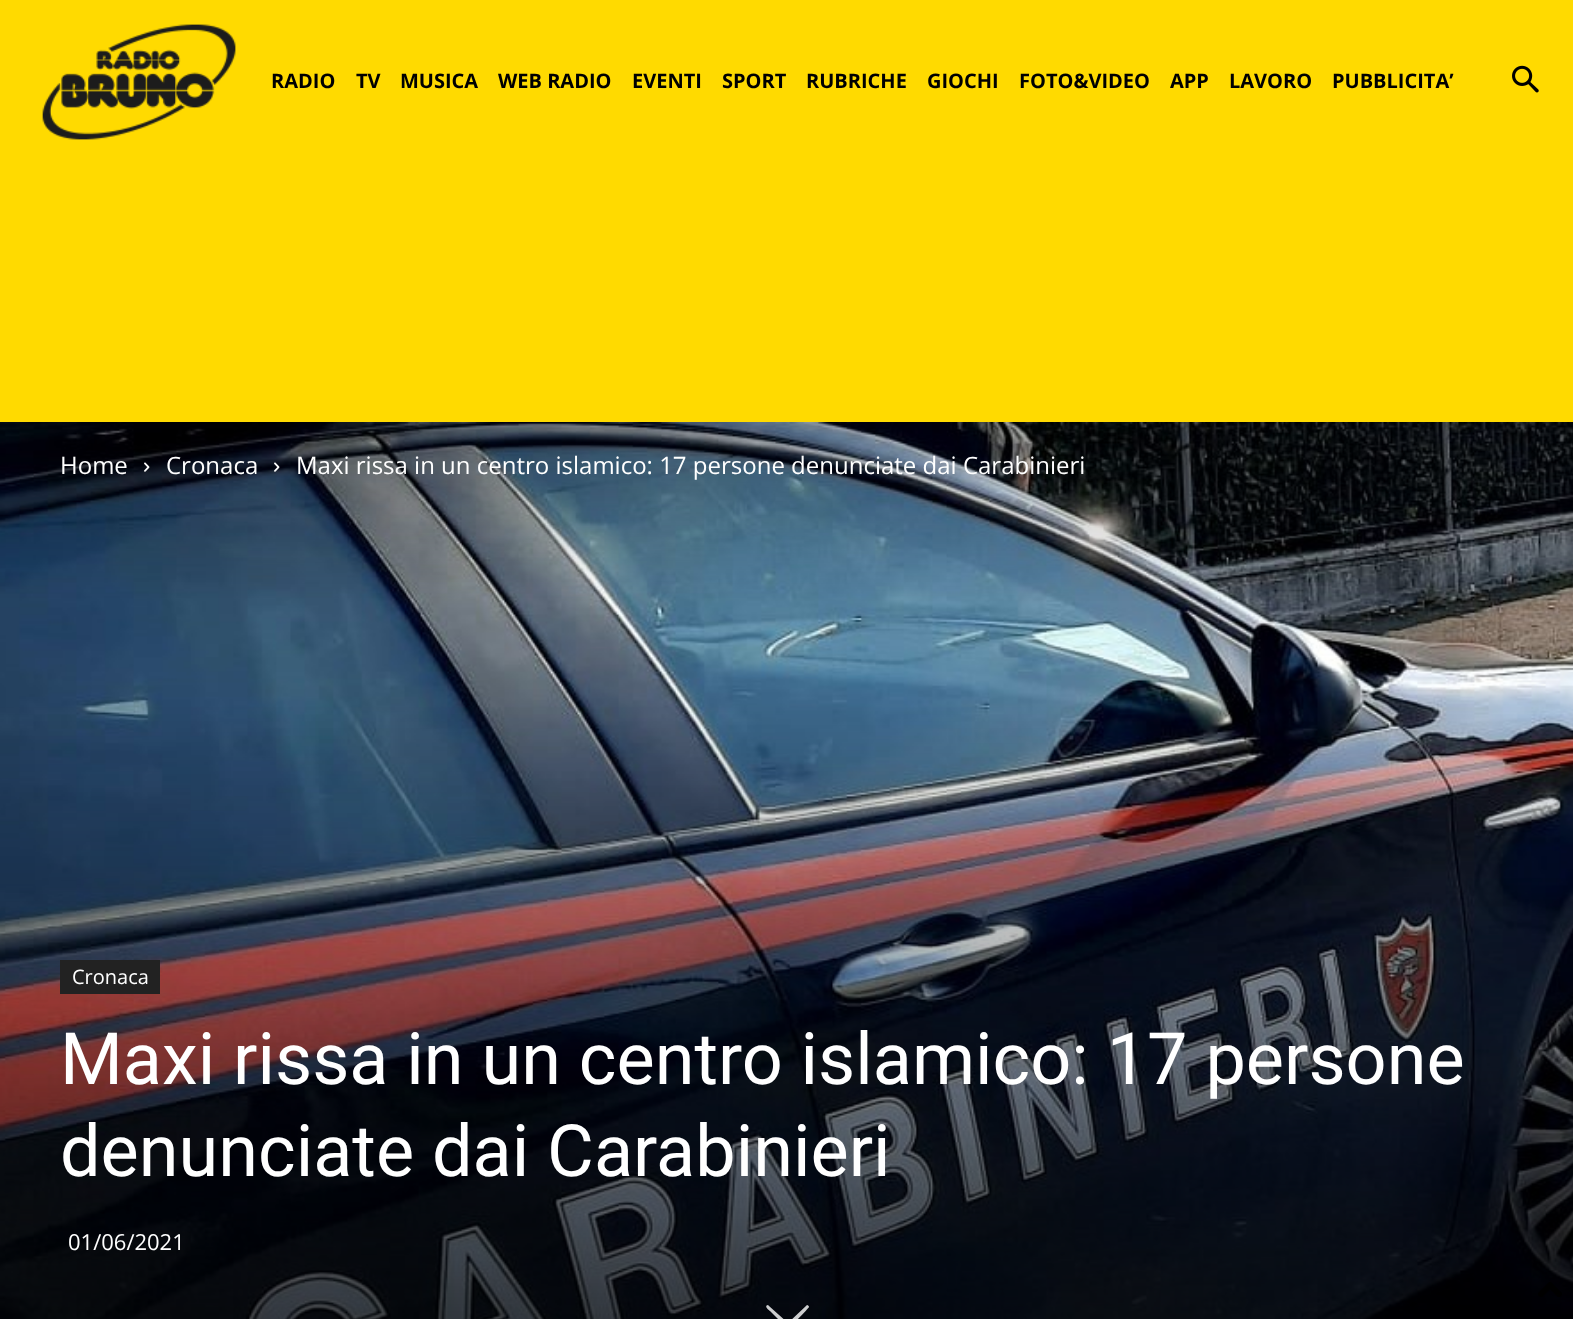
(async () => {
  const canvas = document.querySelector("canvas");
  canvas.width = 1573;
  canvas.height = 1319;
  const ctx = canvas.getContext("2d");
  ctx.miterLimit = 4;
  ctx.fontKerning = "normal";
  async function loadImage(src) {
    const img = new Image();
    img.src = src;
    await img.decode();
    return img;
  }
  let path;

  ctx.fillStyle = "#ffffff";
  ctx.fillRect(0, 0, 1573, 1319);
  ctx.fillStyle = "#ffda00";
  ctx.fillRect(0, 0, 1573, 422);
  ctx.drawImage(await loadImage("img/1.png"), 42, 24, 194, 116);
  ctx.drawImage(await loadImage("img/2.png"), 1512, 65, 27, 28);
  ctx.drawImage(await loadImage("img/3.png"), 0, 422, 1573, 897);
  ctx.drawImage(await loadImage("img/4.png"), 144, 462, 6, 10);
  ctx.drawImage(await loadImage("img/5.png"), 274, 462, 6, 10);
  ctx.fillStyle = "#222222";
  ctx.fillRect(60, 960, 100, 34);
  ctx.fillStyle = "#cdcecf";
  path = new Path2D("M769 1306L788 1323L807 1305C808 1305 809 1306 809 1307C809 1308 791 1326 789 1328H787L770 1311C770 1311 763 1306 768 1305Z");
  ctx.fill(path);
  ctx.drawImage(await loadImage("img/6.png"), 1538, 1282, 24, 15);
  ctx.font = "bold 20px Open Sans";
  ctx.fillStyle = "#000000";
  for (const [text, x, y] of [
    ["RADIO", 271, 88],
    ["TV", 356, 88],
    ["MUSICA", 400, 88],
    ["WEB RADIO", 498, 88],
    ["EVENTI", 632, 88],
    ["SPORT", 722, 88],
    ["RUBRICHE", 806, 88],
    ["GIOCHI", 927, 88],
    ["FOTO&VIDEO", 1019, 88],
    ["APP", 1170, 88],
    ["LAVORO", 1229, 88],
    ["PUBBLICITA’", 1332, 88],
  ]) {
    ctx.fillText(text, x, y);
  }
  ctx.font = "24px Open Sans";
  ctx.fillStyle = "#ffffff";
  for (const [text, x, y] of [
    ["Home", 60, 474],
    ["Cronaca", 166, 474],
    ["Maxi rissa in un centro islamico: 17 persone denunciate dai Carabinieri", 296, 474],
  ]) {
    ctx.fillText(text, x, y);
  }
  ctx.font = "20px Open Sans";
  ctx.fillText("Cronaca", 72, 984);
  ctx.font = "72px Roboto";
  ctx.fillText("Maxi rissa in un centro islamico: 17 persone", 60, 1084);
  ctx.fillText("denunciate dai Carabinieri", 60, 1176);
  ctx.font = "22px Open Sans";
  ctx.fillText("01/06/2021", 68, 1250);
})();
